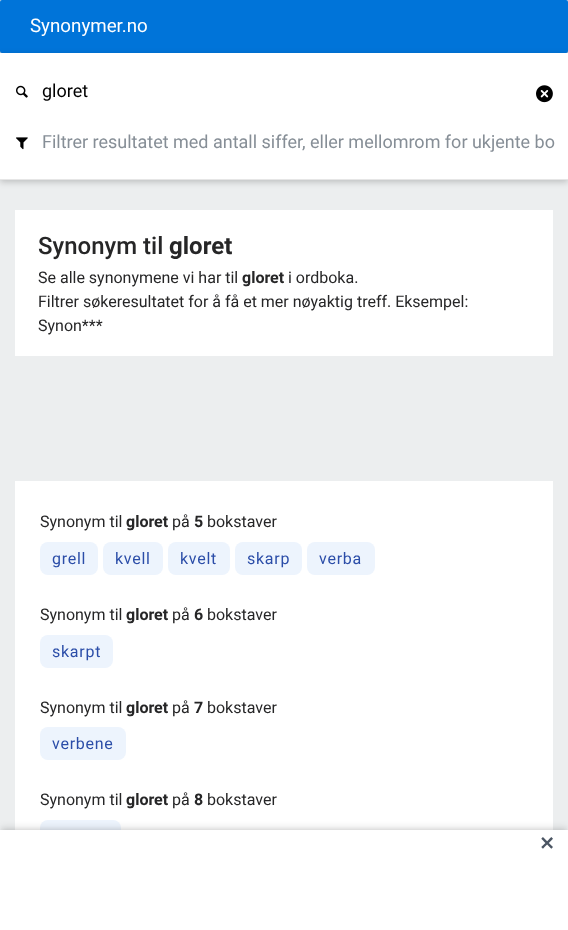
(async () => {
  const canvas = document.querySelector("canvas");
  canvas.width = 568;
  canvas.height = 930;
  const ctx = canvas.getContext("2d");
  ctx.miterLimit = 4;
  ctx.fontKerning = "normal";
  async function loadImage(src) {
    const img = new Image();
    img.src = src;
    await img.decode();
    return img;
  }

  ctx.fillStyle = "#eceeef";
  ctx.fillRect(0, 0, 568, 930);
  ctx.fillStyle = "rgba(0, 0, 0, 0.12)";
  ctx.filter = "blur(5px)";
  ctx.beginPath();
  ctx.roundRect(0, 2, 568, 53, 2);
  ctx.fill();
  ctx.filter = "none";
  ctx.fillStyle = "rgba(0, 0, 0, 0.16)";
  ctx.filter = "blur(2.5px)";
  ctx.beginPath();
  ctx.roundRect(0, 2, 568, 53, 2);
  ctx.fill();
  ctx.filter = "none";
  ctx.fillStyle = "#0074d9";
  ctx.beginPath();
  ctx.roundRect(0, 0, 568, 53, 2);
  ctx.fill();
  ctx.fillStyle = "rgba(0, 0, 0, 0.2)";
  ctx.filter = "blur(3px)";
  ctx.beginPath();
  ctx.rect(0, 55, 568, 127);
  ctx.fill();
  ctx.filter = "none";
  ctx.fillStyle = "#ffffff";
  ctx.fillRect(0, 53, 568, 126);
  ctx.fillStyle = "#e6e6e6";
  ctx.fillRect(0, 179, 568, 1);
  ctx.drawImage(await loadImage("img/1.png"), 16, 85, 12, 13);
  ctx.drawImage(await loadImage("img/2.png"), 536, 85, 17, 18);
  ctx.drawImage(await loadImage("img/3.png"), 16, 137, 12, 13);
  ctx.fillStyle = "#ffffff";
  ctx.fillRect(15, 210, 538, 146);
  ctx.fillRect(15, 481, 538, 349);
  ctx.fillStyle = "#edf4fd";
  ctx.beginPath();
  ctx.roundRect(40, 542, 58, 33, 8);
  ctx.fill();
  ctx.beginPath();
  ctx.roundRect(103, 542, 60, 33, 8);
  ctx.fill();
  ctx.beginPath();
  ctx.roundRect(168, 542, 62, 33, 8);
  ctx.fill();
  ctx.beginPath();
  ctx.roundRect(235, 542, 67, 33, 8);
  ctx.fill();
  ctx.beginPath();
  ctx.roundRect(307, 542, 68, 33, 8);
  ctx.fill();
  ctx.beginPath();
  ctx.roundRect(40, 635, 73, 33, 8);
  ctx.fill();
  ctx.beginPath();
  ctx.roundRect(40, 727, 86, 33, 8);
  ctx.fill();
  ctx.beginPath();
  ctx.roundRect(40, 820, 81, 33, 8);
  ctx.fill();
  ctx.fillStyle = "rgba(0, 0, 0, 0.1)";
  ctx.filter = "blur(2px)";
  ctx.beginPath();
  ctx.rect(2, 830, 564, 96);
  ctx.fill();
  ctx.filter = "none";
  ctx.filter = "blur(3px)";
  ctx.beginPath();
  ctx.rect(1, 827, 566, 98);
  ctx.fill();
  ctx.filter = "none";
  ctx.fillStyle = "#ffffff";
  ctx.fillRect(0, 830, 568, 100);
  ctx.font = "18.75px Roboto";
  ctx.fillText("Synonymer.no", 30, 32);
  ctx.font = "18px Roboto";
  ctx.fillStyle = "#000000";
  ctx.fillText("gloret", 42, 97);
  ctx.fillStyle = "#868e96";
  ctx.fillText("Filtrer resultatet med antall siffer, eller mellomrom for ukjente bo", 42, 148);
  ctx.font = "500 24px Roboto";
  ctx.fillStyle = "#262627";
  ctx.fillText("Synonym til", 38, 254);
  ctx.font = "bold 24px Roboto";
  ctx.fillText("gloret", 169, 254);
  ctx.font = "16px Roboto";
  ctx.fillText("Se alle synonymene vi har til", 38, 283);
  ctx.font = "bold 16px Roboto";
  ctx.fillText("gloret", 242, 283);
  ctx.font = "16px Roboto";
  for (const [text, x, y] of [
    ["i ordboka.", 288, 283],
    ["Filtrer søkeresultatet for å få et mer nøyaktig treff. Eksempel:", 38, 307],
    ["Synon***", 38, 331],
    ["Synonym til", 40, 527],
  ]) {
    ctx.fillText(text, x, y);
  }
  ctx.font = "bold 16px Roboto";
  ctx.fillText("gloret", 126, 527);
  ctx.font = "16px Roboto";
  ctx.fillText("på", 172, 527);
  ctx.font = "bold 16px Roboto";
  ctx.fillText("5", 194, 527);
  ctx.font = "16px Roboto";
  ctx.fillText("bokstaver", 207, 527);
  ctx.letterSpacing = "0.75px";
  ctx.fillStyle = "#2b4da8";
  for (const [text, x, y] of [
    ["grell", 52, 564],
    ["kvell", 115, 564],
    ["kvelt", 180, 564],
    ["skarp", 247, 564],
    ["verba", 319, 564],
  ]) {
    ctx.fillText(text, x, y);
  }
  ctx.letterSpacing = "0px";
  ctx.fillStyle = "#262627";
  ctx.fillText("Synonym til", 40, 620);
  ctx.font = "bold 16px Roboto";
  ctx.fillText("gloret", 126, 620);
  ctx.font = "16px Roboto";
  ctx.fillText("på", 172, 620);
  ctx.font = "bold 16px Roboto";
  ctx.fillText("6", 194, 620);
  ctx.font = "16px Roboto";
  ctx.fillText("bokstaver", 207, 620);
  ctx.letterSpacing = "0.75px";
  ctx.fillStyle = "#2b4da8";
  ctx.fillText("skarpt", 52, 657);
  ctx.letterSpacing = "0px";
  ctx.fillStyle = "#262627";
  ctx.fillText("Synonym til", 40, 713);
  ctx.font = "bold 16px Roboto";
  ctx.fillText("gloret", 126, 713);
  ctx.font = "16px Roboto";
  ctx.fillText("på", 172, 713);
  ctx.font = "bold 16px Roboto";
  ctx.fillText("7", 194, 713);
  ctx.font = "16px Roboto";
  ctx.fillText("bokstaver", 207, 713);
  ctx.letterSpacing = "0.75px";
  ctx.fillStyle = "#2b4da8";
  ctx.fillText("verbene", 52, 749);
  ctx.letterSpacing = "0px";
  ctx.fillStyle = "#262627";
  ctx.fillText("Synonym til", 40, 805);
  ctx.font = "bold 16px Roboto";
  ctx.fillText("gloret", 126, 805);
  ctx.font = "16px Roboto";
  ctx.fillText("på", 172, 805);
  ctx.font = "bold 16px Roboto";
  ctx.fillText("8", 194, 805);
  ctx.font = "16px Roboto";
  ctx.fillText("bokstaver", 207, 805);
  ctx.font = "bold 18.75px DejaVu Sans";
  ctx.fillStyle = "#4b5563";
  ctx.fillText("✕", 539, 850);
})();
